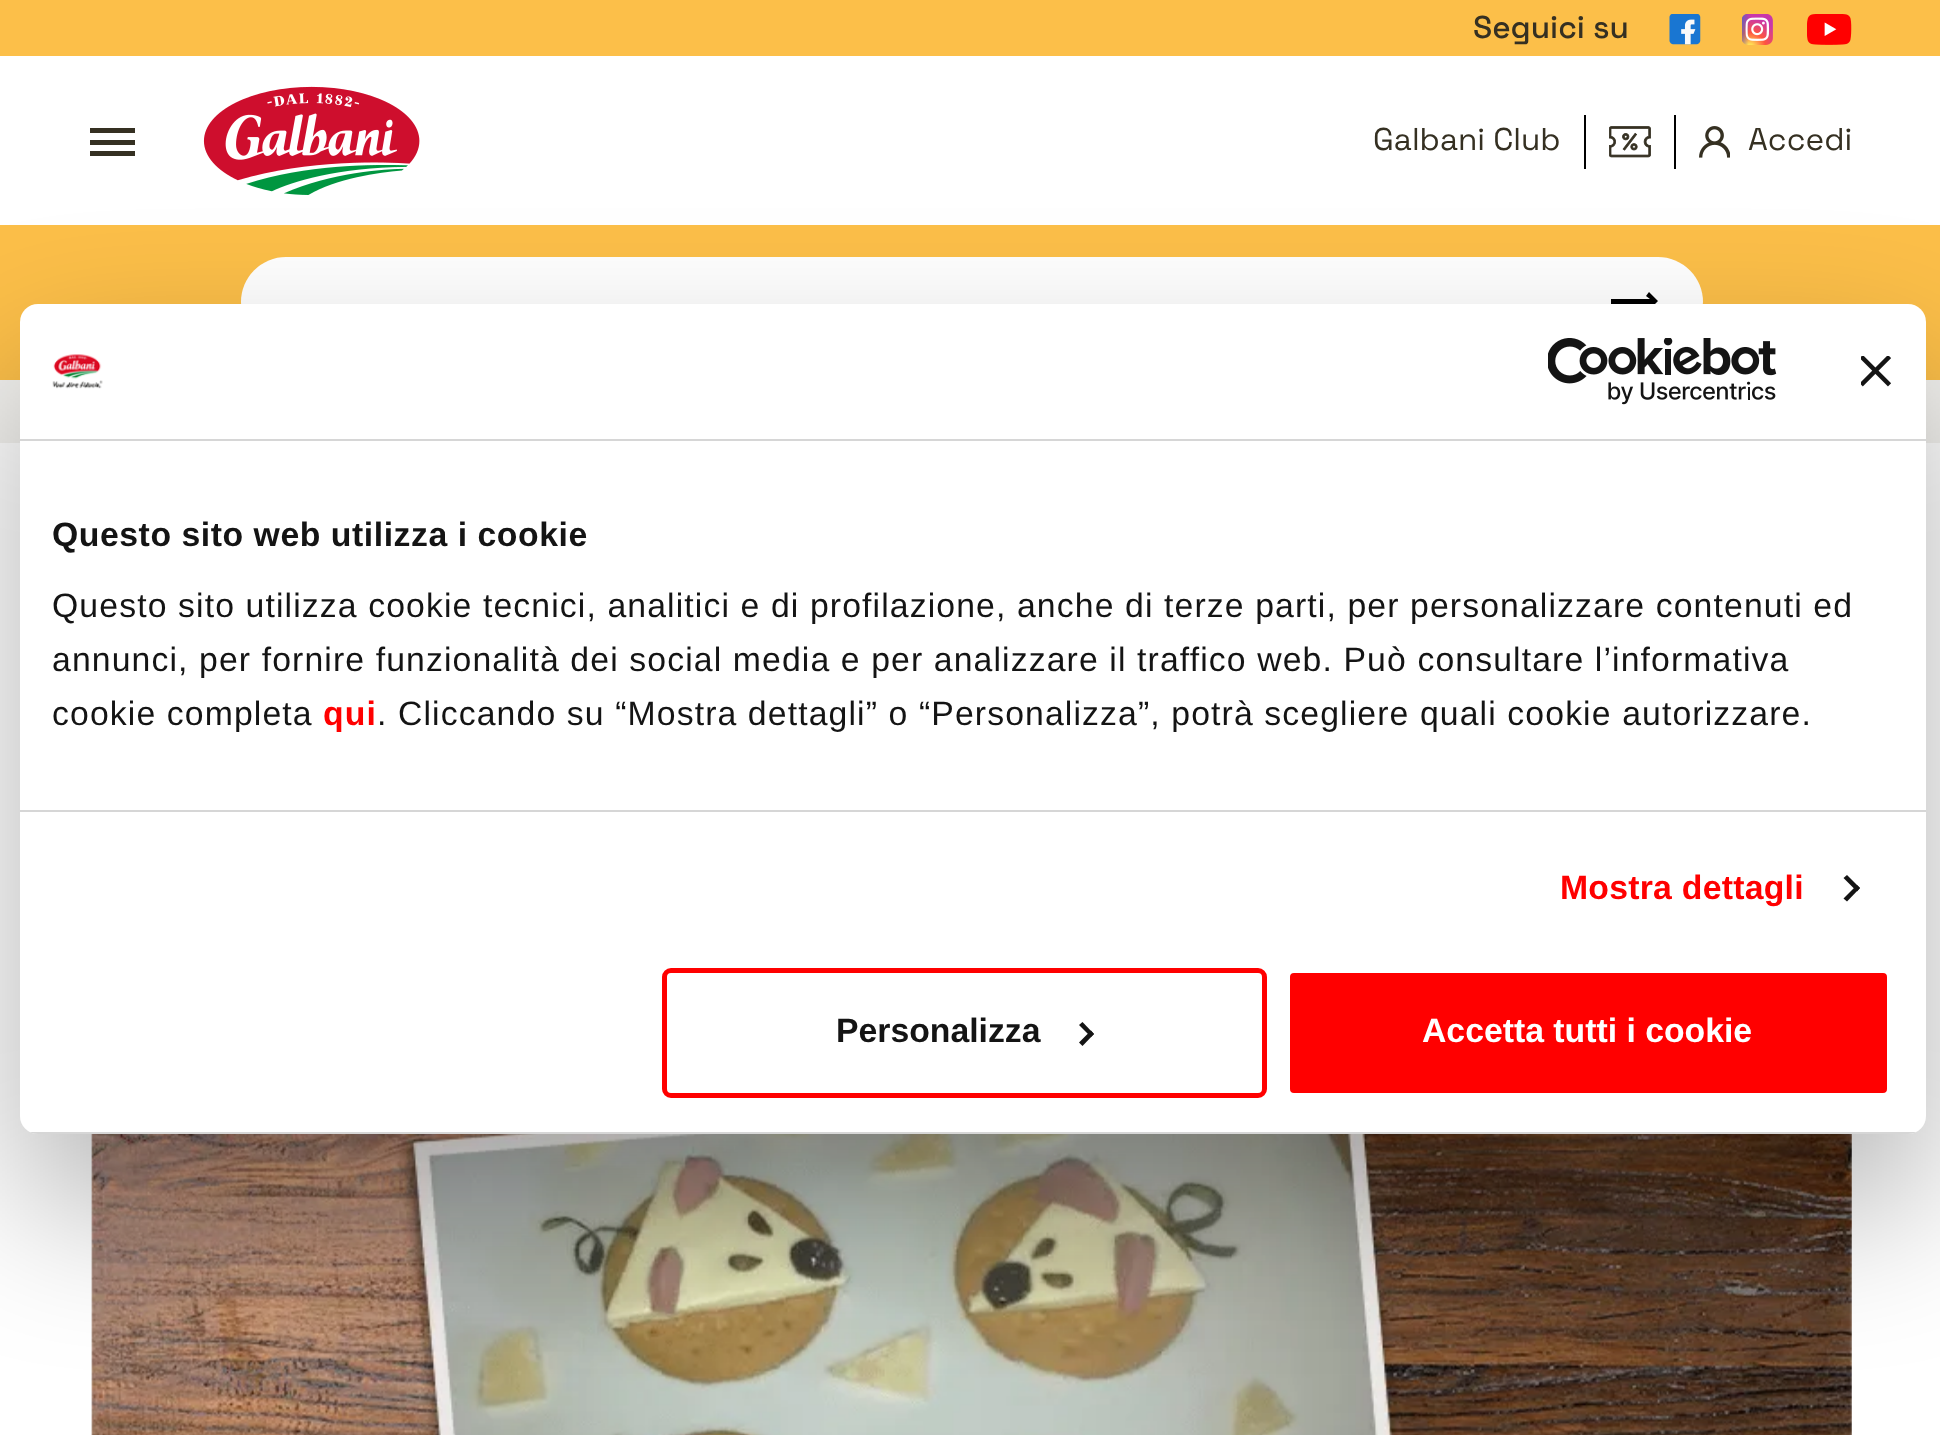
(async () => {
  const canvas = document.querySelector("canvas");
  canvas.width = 1940;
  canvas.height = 1435;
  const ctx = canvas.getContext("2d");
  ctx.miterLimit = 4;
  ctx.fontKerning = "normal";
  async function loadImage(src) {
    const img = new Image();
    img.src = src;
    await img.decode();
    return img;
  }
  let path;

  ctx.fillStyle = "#ffffff";
  ctx.fillRect(0, 0, 1940, 1435);
  ctx.fillStyle = "#fcbf49";
  ctx.fillRect(0, 0, 1940, 56);
  ctx.drawImage(await loadImage("img/1.png"), 1669, 14, 32, 31);
  ctx.drawImage(await loadImage("img/2.png"), 1742, 14, 31, 31);
  ctx.drawImage(await loadImage("img/3.png"), 1807, 14, 45, 31);
  for (const [x, y, w, h, color] of [
    [90, 140, 45, 5, "#353022"],
    [90, 128, 45, 5, "#353022"],
    [90, 151, 45, 5, "#353022"],
  ]) {
    ctx.fillStyle = color;
    ctx.fillRect(x, y, w, h);
  }
  ctx.drawImage(await loadImage("img/4.png"), 203, 86, 217, 109);
  ctx.fillStyle = "#000000";
  ctx.fillRect(1584, 115, 2, 54);
  ctx.fillRect(1674, 115, 2, 54);
  ctx.drawImage(await loadImage("img/5.png"), 1609, 126, 42, 32);
  ctx.drawImage(await loadImage("img/6.png"), 1699, 126, 31, 32);
  ctx.fillStyle = "#fcbf49";
  ctx.fillRect(0, 225, 1940, 155);
  ctx.fillStyle = "#ffffff";
  ctx.beginPath();
  ctx.roundRect(241, 257, 1462, 90, 45);
  ctx.fill();
  ctx.fillStyle = "#000000";
  path = new Path2D("M1658 301L1649 292L1646 296L1650 299H1611V304H1650L1646 308L1649 310Z");
  ctx.fill(path);
  ctx.fillStyle = "#f3f2ef";
  ctx.fillRect(0, 380, 1940, 63);
  ctx.drawImage(await loadImage("img/7.png"), 91, 1134, 1761, 301);
  ctx.fillStyle = "rgba(0, 0, 0, 0.3)";
  ctx.filter = "blur(76.5px)";
  ctx.beginPath();
  ctx.roundRect(20, 376, 1906, 830, 18);
  ctx.fill();
  ctx.filter = "none";
  ctx.fillStyle = "#ffffff";
  ctx.beginPath();
  ctx.roundRect(20, 304, 1906, 830, 18);
  ctx.fill();
  ctx.fillStyle = "#d6d6d6";
  ctx.fillRect(20, 439, 1906, 2);
  ctx.drawImage(await loadImage("img/8.png"), 52, 354, 51, 35);
  ctx.drawImage(await loadImage("img/9.png"), 1548, 338, 229, 67);
  ctx.drawImage(await loadImage("img/10.png"), 1861, 356, 30, 31);
  ctx.fillRect(20, 810, 1906, 2);
  ctx.fillStyle = "#141414";
  path = new Path2D("M1847 875L1860 888L1857 891.5L1843.5 878Z");
  ctx.fill(path);
  path = new Path2D("M1857 885L1860 888L1847 901.5L1843.5 898.5Z");
  ctx.fill(path);
  ctx.save();
  ctx.beginPath();
  ctx.roundRect(20, 304, 1906, 830, 18);
  ctx.clip();
  ctx.fillStyle = "#d6d6d6";
  ctx.fillRect(30, 1132, 1886, 2);
  ctx.restore();
  ctx.beginPath();
  ctx.roundRect(664.5, 970.5, 600, 125, 6.5);
  ctx.strokeStyle = "#ff0000";
  ctx.lineWidth = 5;
  ctx.stroke();
  path = new Path2D("M1082.5 1022L1094 1034L1091 1037L1079 1025Z");
  ctx.fill(path);
  path = new Path2D("M1091 1030.5L1094 1034L1082.5 1046L1079 1042.5Z");
  ctx.fill(path);
  ctx.fillStyle = "#ff0000";
  ctx.beginPath();
  ctx.roundRect(1287.5, 970.5, 602, 125, 6.5);
  ctx.fill();
  ctx.strokeStyle = "#ffffff";
  ctx.stroke();
  ctx.font = "500 31.5px Space Grotesk";
  ctx.fillStyle = "#353022";
  ctx.fillText("Seguici su", 1473, 38);
  ctx.font = "31.5px Space Grotesk";
  ctx.fillText("Galbani Club", 1373, 150);
  ctx.fillText("Accedi", 1748, 150);
  ctx.letterSpacing = "0.55px";
  ctx.font = "bold 33.75px Liberation Sans";
  ctx.fillStyle = "#141414";
  ctx.fillText("Questo sito web utilizza i cookie", 52, 546);
  ctx.letterSpacing = "1.12px";
  ctx.font = "33.75px Liberation Sans";
  for (const [text, x, y] of [
    ["Questo sito utilizza cookie tecnici, analitici e di profilazione, anche di terze parti, per personalizzare contenuti ed", 52, 617],
    ["annunci, per fornire funzionalità dei social media e per analizzare il traffico web. Può consultare l’informativa", 52, 671],
    ["cookie completa", 52, 725],
  ]) {
    ctx.fillText(text, x, y);
  }
  ctx.font = "bold 33.75px Liberation Sans";
  ctx.fillStyle = "#ff0000";
  ctx.fillText("qui", 323, 725);
  ctx.font = "33.75px Liberation Sans";
  ctx.fillStyle = "#141414";
  ctx.fillText(". Cliccando su “Mostra dettagli” o “Personalizza”, potrà scegliere quali cookie autorizzare.", 377, 725);
  ctx.letterSpacing = "0.25px";
  ctx.font = "bold 33.75px Liberation Sans";
  ctx.fillStyle = "#ff0000";
  ctx.fillText("Mostra dettagli", 1560, 899);
  ctx.letterSpacing = "0px";
  ctx.fillStyle = "#141414";
  ctx.fillText("Personalizza", 836, 1042);
  ctx.fillStyle = "#ffffff";
  ctx.fillText("Accetta tutti i cookie", 1422, 1042);
})();
